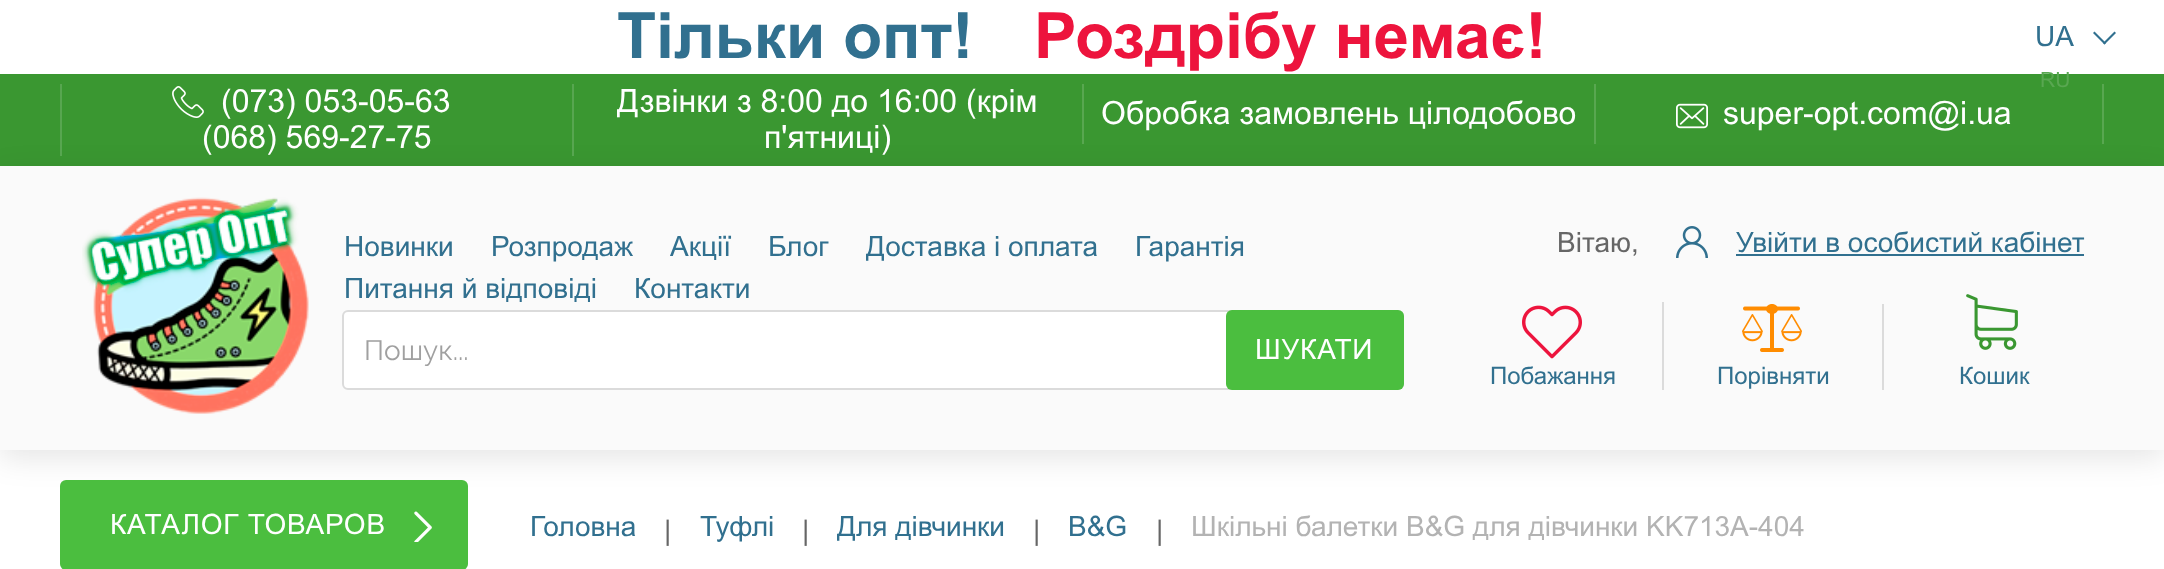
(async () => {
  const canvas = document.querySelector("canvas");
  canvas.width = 2164;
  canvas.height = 569;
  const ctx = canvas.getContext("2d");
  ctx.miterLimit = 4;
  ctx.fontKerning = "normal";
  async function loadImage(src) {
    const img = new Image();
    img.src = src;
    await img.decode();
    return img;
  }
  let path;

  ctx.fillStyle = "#ffffff";
  ctx.fillRect(0, 0, 2164, 569);
  ctx.fillStyle = "#31708f";
  path = new Path2D("M2114.5 31.5L2116 33L2104.5 44.5L2103 43Z");
  ctx.fill(path);
  path = new Path2D("M2094.5 31.5L2106 43L2104.5 44.5L2093 33Z");
  ctx.fill(path);
  ctx.fillStyle = "#3a9731";
  ctx.fillRect(0, 74, 2164, 92);
  ctx.fillStyle = "rgba(0, 0, 0, 0.1)";
  ctx.filter = "blur(15px)";
  ctx.beginPath();
  ctx.rect(0, 174, 2164, 284);
  ctx.fill();
  ctx.filter = "none";
  ctx.fillStyle = "#57a650";
  ctx.fillRect(60, 84, 2, 72);
  ctx.drawImage(await loadImage("img/1.png"), 172, 86, 32, 32);
  for (const [x, y, w, h, color] of [
    [572, 84, 2, 72, "#57a650"],
    [1082, 84, 2, 60, "#58a750"],
    [2102, 84, 2, 60, "#58a750"],
    [1594, 84, 2, 60, "#58a750"],
  ]) {
    ctx.fillStyle = color;
    ctx.fillRect(x, y, w, h);
  }
  ctx.drawImage(await loadImage("img/2.png"), 1676, 103, 32, 26);
  ctx.fillStyle = "#fafafa";
  ctx.fillRect(0, 166, 2164, 284);
  ctx.drawImage(await loadImage("img/3.png"), 82, 197, 227, 217);
  ctx.drawImage(await loadImage("img/4.png"), 1676, 226, 32, 32);
  ctx.fillStyle = "#31708f";
  ctx.fillRect(1736, 254, 348, 2);
  ctx.fillStyle = "#ffffff";
  ctx.beginPath();
  ctx.roundRect(343, 311, 1060, 78, 5);
  ctx.fill();
  ctx.strokeStyle = "#dbdbdb";
  ctx.lineWidth = 2;
  ctx.stroke();
  ctx.fillStyle = "#4bbe3f";
  ctx.beginPath();
  ctx.roundRect(1226, 310, 178, 80, 6);
  ctx.fill();
  ctx.fillStyle = "#dbdbdb";
  ctx.fillRect(1662, 302, 2, 88);
  ctx.drawImage(await loadImage("img/5.png"), 1522, 305, 60, 54);
  ctx.fillRect(1882, 304, 2, 86);
  ctx.drawImage(await loadImage("img/6.png"), 1742, 304, 60, 48);
  ctx.drawImage(await loadImage("img/7.png"), 1966, 294, 52, 56);
  ctx.fillStyle = "#4bbe3f";
  ctx.beginPath();
  ctx.roundRect(60, 480, 408, 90, 6);
  ctx.fill();
  ctx.drawImage(await loadImage("img/8.png"), 414, 511, 18, 31);
  ctx.font = "bold 64px Arial";
  ctx.fillStyle = "#31708f";
  ctx.fillText("Тільки опт!", 617, 58);
  ctx.fillStyle = "#ed143d";
  ctx.fillText("Роздрібу немає!", 1034, 58);
  ctx.font = "28px Arial";
  ctx.fillStyle = "#31708f";
  ctx.fillText("UA", 2035, 46);
  ctx.font = "21px Arial";
  ctx.fillStyle = "#59a751";
  ctx.fillText("RU", 2040, 87);
  ctx.font = "32px Arial";
  ctx.fillStyle = "#ffffff";
  for (const [text, x, y] of [
    ["(073) 053-05-63", 221, 112],
    ["(068) 569-27-75", 202, 148],
    ["Дзвінки з 8:00 до 16:00 (крім", 617, 112],
    ["п'ятниці)", 764, 148],
    ["Обробка замовлень цілодобово", 1101, 124],
    ["super-opt.com@i.ua", 1723, 124],
  ]) {
    ctx.fillText(text, x, y);
  }
  ctx.font = "28px Arial";
  ctx.fillStyle = "#31708f";
  for (const [text, x, y] of [
    ["Новинки", 344, 256],
    ["Розпродаж", 491, 256],
    ["Акції", 670, 256],
    ["Блог", 768, 256],
    ["Доставка і оплата", 866, 256],
    ["Гарантія", 1135, 256],
    ["Питання й відповіді", 344, 298],
    ["Контакти", 634, 298],
  ]) {
    ctx.fillText(text, x, y);
  }
  ctx.fillStyle = "#666666";
  ctx.fillText("Вітаю,", 1557, 252);
  ctx.fillStyle = "#31708f";
  ctx.fillText("Увійти в особистий кабінет", 1736, 252);
  ctx.font = "28px Raleway";
  ctx.fillStyle = "#a0a0a0";
  ctx.fillText("Пошук...", 364, 360);
  ctx.letterSpacing = "0.8px";
  ctx.font = "28px Arial";
  ctx.fillStyle = "#ffffff";
  ctx.fillText("ШУКАТИ", 1255, 359);
  ctx.letterSpacing = "0px";
  ctx.font = "24px Arial";
  ctx.fillStyle = "#31708f";
  for (const [text, x, y] of [
    ["Побажання", 1490, 384],
    ["Порівняти", 1717, 384],
    ["Кошик", 1959, 384],
  ]) {
    ctx.fillText(text, x, y);
  }
  ctx.letterSpacing = "0.8px";
  ctx.font = "28px Arial";
  ctx.fillStyle = "#ffffff";
  ctx.fillText("КАТАЛОГ ТОВАРОВ", 110, 534);
  ctx.letterSpacing = "0px";
  ctx.fillStyle = "#31708f";
  ctx.fillText("Головна", 530, 536);
  ctx.fillStyle = "#666666";
  ctx.fillText("|", 664, 540);
  ctx.fillStyle = "#31708f";
  ctx.fillText("Туфлі", 700, 536);
  ctx.fillStyle = "#666666";
  ctx.fillText("|", 802, 540);
  ctx.fillStyle = "#31708f";
  ctx.fillText("Для дівчинки", 837, 536);
  ctx.fillStyle = "#666666";
  ctx.fillText("|", 1033, 540);
  ctx.fillStyle = "#31708f";
  ctx.fillText("B&G", 1068, 536);
  ctx.fillStyle = "#666666";
  ctx.fillText("|", 1156, 540);
  ctx.fillStyle = "#b3b3b3";
  ctx.fillText("Шкільні балетки B&G для дівчинки KK713A-404", 1191, 536);
})();
